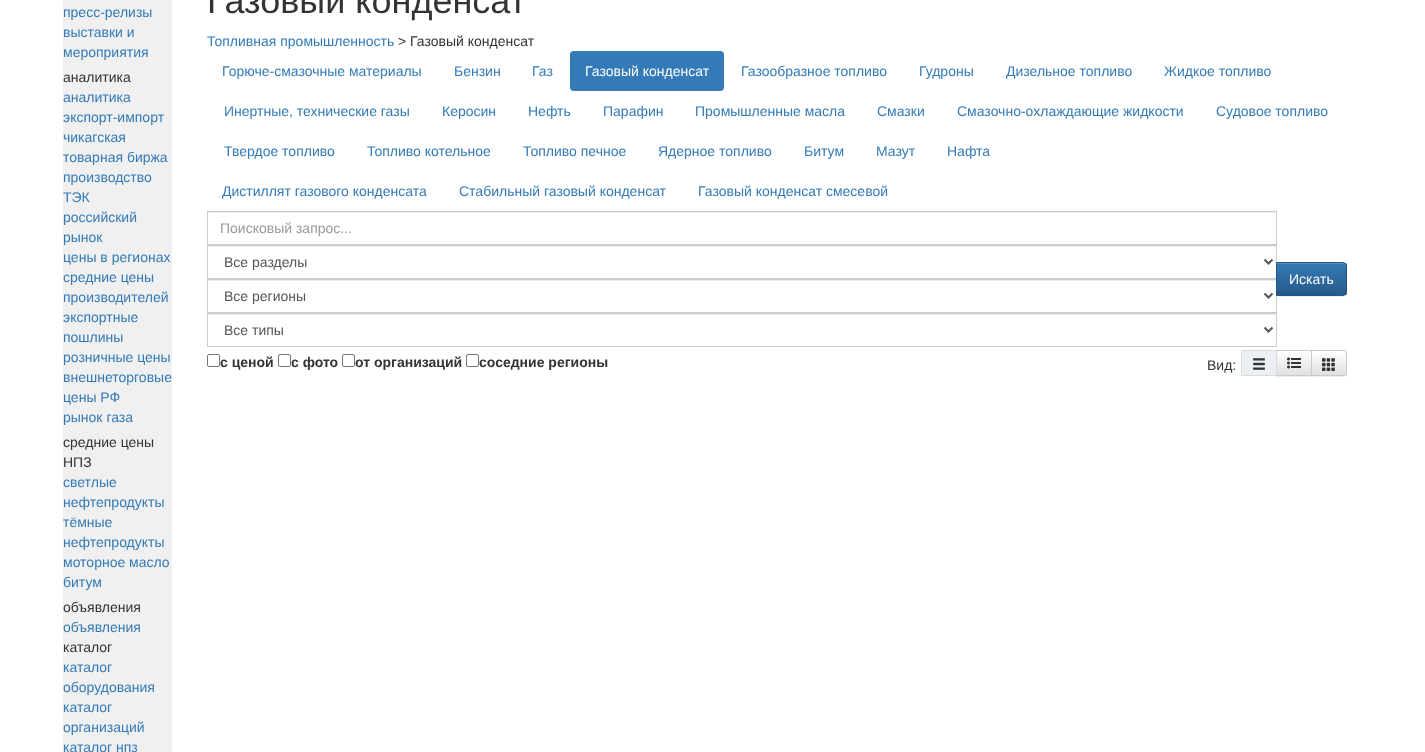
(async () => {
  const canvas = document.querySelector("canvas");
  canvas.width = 1425;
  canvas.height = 752;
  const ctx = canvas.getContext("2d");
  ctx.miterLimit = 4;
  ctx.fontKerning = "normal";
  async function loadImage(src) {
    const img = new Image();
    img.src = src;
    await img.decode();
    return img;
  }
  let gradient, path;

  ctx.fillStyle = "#ffffff";
  ctx.fillRect(0, 0, 1425, 752);
  ctx.fillStyle = "#f0f0f0";
  ctx.fillRect(63, 0, 109, 752);
  ctx.fillStyle = "#337ab7";
  ctx.beginPath();
  ctx.roundRect(570, 51, 154, 40, 4);
  ctx.fill();
  ctx.fillStyle = "#ececec";
  ctx.fillRect(208, 212, 1068, 1);
  ctx.strokeStyle = "#cccccc";
  ctx.strokeRect(207.5, 211.5, 1069, 33);
  ctx.fillRect(208, 246, 1068, 1);
  ctx.strokeRect(207.5, 245.5, 1069, 33);
  path = new Path2D("M1264.5 259.5L1268.5 263.5L1272.5 259.5");
  ctx.strokeStyle = "#555555";
  ctx.lineWidth = 2;
  ctx.stroke(path);
  ctx.fillRect(208, 280, 1068, 1);
  ctx.strokeStyle = "#cccccc";
  ctx.lineWidth = 1;
  ctx.strokeRect(207.5, 279.5, 1069, 33);
  path = new Path2D("M1264.5 293.5L1268.5 297.5L1272.5 293.5");
  ctx.strokeStyle = "#555555";
  ctx.lineWidth = 2;
  ctx.stroke(path);
  ctx.fillStyle = "rgba(0, 0, 0, 0.07)";
  ctx.filter = "blur(0.5px)";
  ctx.beginPath();
  ctx.roundRect(1276, 263, 71, 34, 4);
  ctx.fill();
  ctx.filter = "none";
  ctx.save();
  ctx.beginPath();
  ctx.roundRect(1276, 262, 71, 34, [0, 4, 4, 0]);
  ctx.clip();
  gradient = ctx.createLinearGradient(1312, 263, 1312, 295);
  gradient.addColorStop(0, "#337ab7");
  gradient.addColorStop(1, "#265a88");
  ctx.fillStyle = gradient;
  ctx.fillRect(1277, 263, 70, 32);
  ctx.restore();
  ctx.fillStyle = "#528ec1";
  path = new Path2D("M1277 264H1343C1345 264 1346 265 1346 267V266C1346 264 1345 263 1343 263H1277Z");
  ctx.fill(path);
  ctx.beginPath();
  ctx.roundRect(1276.5, 262.5, 70, 33, [0, 3.5, 3.5, 0]);
  ctx.strokeStyle = "#245580";
  ctx.lineWidth = 1;
  ctx.stroke();
  ctx.fillStyle = "#ececec";
  ctx.fillRect(208, 314, 1068, 1);
  ctx.strokeStyle = "#cccccc";
  ctx.strokeRect(207.5, 313.5, 1069, 33);
  path = new Path2D("M1264.5 327.5L1268.5 331.5L1272.5 327.5");
  ctx.strokeStyle = "#555555";
  ctx.lineWidth = 2;
  ctx.stroke(path);
  ctx.beginPath();
  ctx.roundRect(207.5, 354.5, 12, 12, 1.5);
  ctx.strokeStyle = "#767676";
  ctx.lineWidth = 1;
  ctx.stroke();
  ctx.beginPath();
  ctx.roundRect(278.5, 354.5, 12, 12, 1.5);
  ctx.stroke();
  ctx.beginPath();
  ctx.roundRect(342.5, 354.5, 12, 12, 1.5);
  ctx.stroke();
  ctx.beginPath();
  ctx.roundRect(466.5, 354.5, 12, 12, 1.5);
  ctx.stroke();
  ctx.fillStyle = "rgba(0, 0, 0, 0.07)";
  ctx.filter = "blur(0.5px)";
  ctx.beginPath();
  ctx.rect(1276, 351, 36, 26);
  ctx.fill();
  ctx.filter = "none";
  gradient = ctx.createLinearGradient(1294, 351, 1294, 375);
  gradient.addColorStop(0, "#ffffff");
  gradient.addColorStop(1, "#e0e0e0");
  ctx.fillStyle = gradient;
  ctx.fillRect(1277, 351, 34, 24);
  ctx.strokeStyle = "#cccccc";
  ctx.strokeRect(1276.5, 350.5, 35, 25);
  ctx.fillStyle = "#ecf0f5";
  ctx.beginPath();
  ctx.rect(1241.5, 350.5, 35, 25);
  ctx.fill();
  ctx.strokeStyle = "#dbdbdb";
  ctx.stroke();
  ctx.drawImage(await loadImage("img/1.png"), 1253, 358, 12, 12);
  ctx.drawImage(await loadImage("img/2.png"), 1287, 357, 14, 12);
  ctx.fillStyle = "rgba(0, 0, 0, 0.07)";
  ctx.filter = "blur(0.5px)";
  ctx.beginPath();
  ctx.roundRect(1311, 351, 36, 26, 3);
  ctx.fill();
  ctx.filter = "none";
  ctx.save();
  ctx.beginPath();
  ctx.roundRect(1311, 350, 36, 26, [0, 3, 3, 0]);
  ctx.clip();
  gradient = ctx.createLinearGradient(1329, 351, 1329, 375);
  gradient.addColorStop(0, "#ffffff");
  gradient.addColorStop(1, "#e0e0e0");
  ctx.fillStyle = gradient;
  ctx.fillRect(1312, 351, 35, 24);
  ctx.restore();
  ctx.beginPath();
  ctx.roundRect(1311.5, 350.5, 35, 25, [0, 2.5, 2.5, 0]);
  ctx.strokeStyle = "#cccccc";
  ctx.stroke();
  ctx.drawImage(await loadImage("img/3.png"), 1322, 358, 13, 13);
  ctx.font = "14px Liberation Sans";
  ctx.fillStyle = "#337ab7";
  for (const [text, x, y] of [
    ["пресс-релизы", 63, 17],
    ["выставки и", 63, 37],
    ["мероприятия", 63, 57],
  ]) {
    ctx.fillText(text, x, y);
  }
  ctx.fillStyle = "#333333";
  ctx.fillText("аналитика", 63, 82);
  ctx.fillStyle = "#337ab7";
  for (const [text, x, y] of [
    ["аналитика", 63, 102],
    ["экспорт-импорт", 63, 122],
    ["чикагская", 63, 142],
    ["товарная биржа", 63, 162],
    ["производство", 63, 182],
    ["ТЭК", 63, 202],
    ["российский", 63, 222],
    ["рынок", 63, 242],
    ["цены в регионах", 63, 262],
    ["средние цены", 63, 282],
    ["производителей", 63, 302],
    ["экспортные", 63, 322],
    ["пошлины", 63, 342],
    ["розничные цены", 63, 362],
    ["внешнеторговые", 63, 382],
    ["цены РФ", 63, 402],
    ["рынок газа", 63, 422],
  ]) {
    ctx.fillText(text, x, y);
  }
  ctx.fillStyle = "#333333";
  ctx.fillText("средние цены", 63, 447);
  ctx.fillText("НПЗ", 63, 467);
  ctx.fillStyle = "#337ab7";
  for (const [text, x, y] of [
    ["светлые", 63, 487],
    ["нефтепродукты", 63, 507],
    ["тёмные", 63, 527],
    ["нефтепродукты", 63, 547],
    ["моторное масло", 63, 567],
    ["битум", 63, 587],
  ]) {
    ctx.fillText(text, x, y);
  }
  ctx.fillStyle = "#333333";
  ctx.fillText("объявления", 63, 612);
  ctx.fillStyle = "#337ab7";
  ctx.fillText("объявления", 63, 632);
  ctx.fillStyle = "#333333";
  ctx.fillText("каталог", 63, 652);
  ctx.fillStyle = "#337ab7";
  for (const [text, x, y] of [
    ["каталог", 63, 672],
    ["оборудования", 63, 692],
    ["каталог", 63, 712],
    ["организаций", 63, 732],
    ["каталог нпз", 63, 752],
  ]) {
    ctx.fillText(text, x, y);
  }
  ctx.font = "36px Liberation Sans";
  ctx.fillStyle = "#333333";
  ctx.fillText("Газовый конденсат", 207, 13);
  ctx.font = "14px Liberation Sans";
  ctx.fillStyle = "#337ab7";
  ctx.fillText("Топливная промышленность", 207, 46);
  ctx.fillStyle = "#333333";
  ctx.fillText("> Газовый конденсат", 398, 46);
  ctx.fillStyle = "#337ab7";
  for (const [text, x, y] of [
    ["Горюче-смазочные материалы", 222, 76],
    ["Бензин", 454, 76],
    ["Газ", 532, 76],
  ]) {
    ctx.fillText(text, x, y);
  }
  ctx.fillStyle = "#ffffff";
  ctx.fillText("Газовый конденсат", 585, 76);
  ctx.fillStyle = "#337ab7";
  for (const [text, x, y] of [
    ["Газообразное топливо", 741, 76],
    ["Гудроны", 919, 76],
    ["Дизельное топливо", 1006, 76],
    ["Жидкое топливо", 1164, 76],
    ["Инертные, технические газы", 224, 116],
    ["Керосин", 442, 116],
    ["Нефть", 528, 116],
    ["Парафин", 603, 116],
    ["Промышленные масла", 695, 116],
    ["Смазки", 877, 116],
    ["Смазочно-охлаждающие жидкости", 957, 116],
    ["Судовое топливо", 1216, 116],
    ["Твердое топливо", 224, 156],
    ["Топливо котельное", 367, 156],
    ["Топливо печное", 523, 156],
    ["Ядерное топливо", 658, 156],
    ["Битум", 804, 156],
    ["Мазут", 876, 156],
    ["Нафта", 947, 156],
    ["Дистиллят газового конденсата", 222, 196],
    ["Стабильный газовый конденсат", 459, 196],
    ["Газовый конденсат смесевой", 698, 196],
  ]) {
    ctx.fillText(text, x, y);
  }
  ctx.fillStyle = "#999999";
  ctx.fillText("Поисковый запрос...", 220, 233);
  ctx.fillStyle = "#555555";
  ctx.fillText("Все разделы", 224, 267);
  ctx.fillStyle = "#ffffff";
  ctx.fillText("Искать", 1289, 284);
  ctx.fillStyle = "#555555";
  ctx.fillText("Все регионы", 224, 301);
  ctx.fillText("Все типы", 224, 335);
  ctx.font = "bold 14px Liberation Sans";
  ctx.fillStyle = "#333333";
  for (const [text, x, y] of [
    ["с ценой", 220, 367],
    ["с фото", 291, 367],
    ["от организаций", 355, 367],
    ["соседние регионы", 479, 367],
  ]) {
    ctx.fillText(text, x, y);
  }
  ctx.font = "14px Liberation Sans";
  ctx.fillText("Вид:", 1207, 370);
})();
